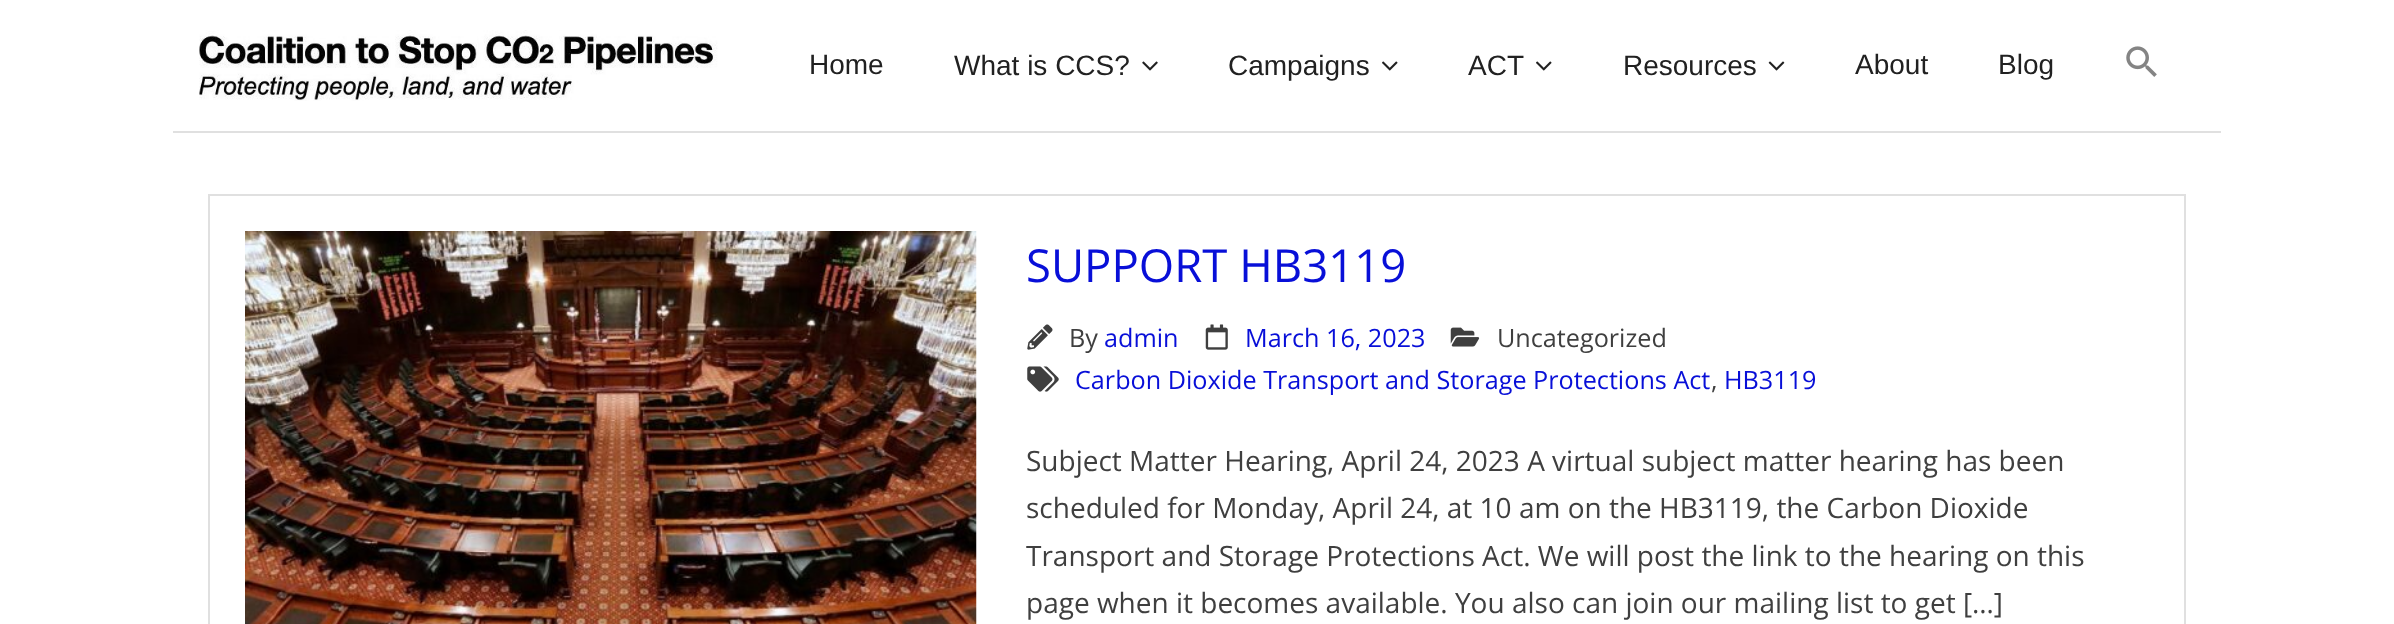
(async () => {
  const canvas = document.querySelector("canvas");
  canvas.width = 2394;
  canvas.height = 624;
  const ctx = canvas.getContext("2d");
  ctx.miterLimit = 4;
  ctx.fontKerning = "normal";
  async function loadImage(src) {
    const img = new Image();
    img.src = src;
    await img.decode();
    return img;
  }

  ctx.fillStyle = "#ffffff";
  ctx.fillRect(0, 0, 2394, 624);
  ctx.fillStyle = "#e0e0e0";
  ctx.fillRect(173, 131, 2048, 2);
  ctx.drawImage(await loadImage("img/1.png"), 199, 30, 519, 71);
  ctx.drawImage(await loadImage("img/2.png"), 1142, 61, 16, 10);
  ctx.drawImage(await loadImage("img/3.png"), 1382, 61, 16, 10);
  ctx.drawImage(await loadImage("img/3.png"), 1536, 61, 16, 10);
  ctx.drawImage(await loadImage("img/4.png"), 1768, 61, 17, 10);
  ctx.drawImage(await loadImage("img/5.png"), 2126, 46, 31, 31);
  ctx.strokeStyle = "#e0e0e0";
  ctx.lineWidth = 2;
  ctx.strokeRect(209, 195, 1976, 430);
  ctx.drawImage(await loadImage("img/6.png"), 245, 231, 732, 393);
  ctx.drawImage(await loadImage("img/7.png"), 1027, 324, 26, 26);
  ctx.drawImage(await loadImage("img/8.png"), 1205, 324, 23, 26);
  ctx.drawImage(await loadImage("img/9.png"), 1450, 327, 30, 20);
  ctx.drawImage(await loadImage("img/10.png"), 1027, 366, 32, 26);
  ctx.font = "28px Liberation Sans";
  ctx.fillStyle = "#212121";
  for (const [text, x, y] of [
    ["Home", 809, 74],
    ["What is CCS?", 954, 75],
    ["Campaigns", 1228, 75],
    ["ACT", 1468, 75],
    ["Resources", 1623, 75],
    ["About", 1855, 74],
    ["Blog", 1998, 74],
  ]) {
    ctx.fillText(text, x, y);
  }
  ctx.font = "45.5px Open Sans";
  ctx.fillStyle = "#080fd8";
  ctx.fillText("SUPPORT HB3119", 1026, 282);
  ctx.font = "25.2px Open Sans";
  ctx.fillStyle = "#3f3f3f";
  ctx.fillText("By", 1069, 347);
  ctx.fillStyle = "#080fd8";
  ctx.fillText("admin", 1104, 347);
  ctx.fillText("March 16, 2023", 1245, 347);
  ctx.fillStyle = "#3f3f3f";
  ctx.fillText("Uncategorized", 1497, 347);
  ctx.fillStyle = "#080fd8";
  ctx.fillText("Carbon Dioxide Transport and Storage Protections Act", 1075, 389);
  ctx.fillStyle = "#3f3f3f";
  ctx.fillText(",", 1711, 389);
  ctx.fillStyle = "#080fd8";
  ctx.fillText("HB3119", 1724, 389);
  ctx.font = "28px Open Sans";
  ctx.fillStyle = "#3f3f3f";
  for (const [text, x, y] of [
    ["Subject Matter Hearing, April 24, 2023 A virtual subject matter hearing has been", 1026, 471],
    ["scheduled for Monday, April 24, at 10 am on the HB3119, the Carbon Dioxide", 1026, 518],
    ["Transport and Storage Protections Act. We will post the link to the hearing on this", 1026, 566],
    ["page when it becomes available. You also can join our mailing list to get […]", 1026, 613],
  ]) {
    ctx.fillText(text, x, y);
  }
})();
